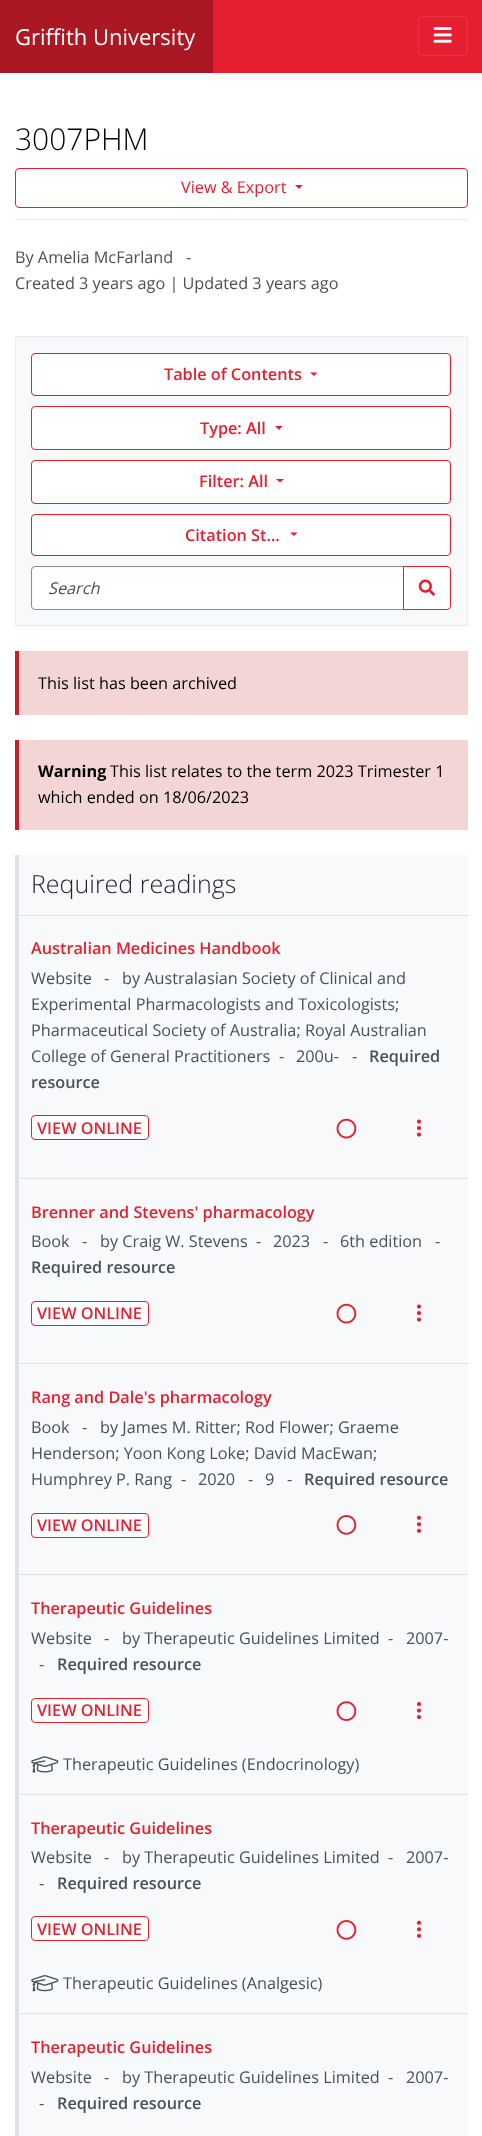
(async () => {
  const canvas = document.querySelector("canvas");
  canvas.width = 482;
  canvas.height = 2136;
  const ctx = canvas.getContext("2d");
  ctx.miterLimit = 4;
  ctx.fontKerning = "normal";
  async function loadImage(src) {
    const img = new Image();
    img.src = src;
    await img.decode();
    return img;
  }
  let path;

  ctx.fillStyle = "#ffffff";
  ctx.fillRect(0, 0, 482, 2136);
  ctx.fillStyle = "#e51f30";
  ctx.fillRect(213, 0, 269, 73);
  ctx.fillStyle = "#ac1724";
  ctx.fillRect(0, 0, 213, 73);
  ctx.beginPath();
  ctx.roundRect(418.5, 16.5, 49, 39, 3.5);
  ctx.strokeStyle = "#e83545";
  ctx.stroke();
  ctx.drawImage(await loadImage("img/1.png"), 433, 27, 19, 16);
  ctx.fillStyle = "#e9ecef";
  ctx.fillRect(15, 219, 453, 1);
  ctx.beginPath();
  ctx.roundRect(15.5, 168.5, 452, 39, 3.5);
  ctx.strokeStyle = "#e51f30";
  ctx.stroke();
  ctx.fillStyle = "#e51f30";
  path = new Path2D("M295 185H302.5L299 189Z");
  ctx.fill(path);
  ctx.fillStyle = "#f8f9fa";
  ctx.beginPath();
  ctx.rect(15.5, 336.5, 452, 289);
  ctx.fill();
  ctx.strokeStyle = "#e9ecef";
  ctx.stroke();
  ctx.fillStyle = "#ffffff";
  ctx.beginPath();
  ctx.roundRect(31.5, 353.5, 419, 42, 3.5);
  ctx.fill();
  ctx.strokeStyle = "#e51f30";
  ctx.stroke();
  ctx.fillStyle = "#e51f30";
  path = new Path2D("M310 372.5H317.5L314 376Z");
  ctx.fill(path);
  ctx.fillStyle = "#ffffff";
  ctx.beginPath();
  ctx.roundRect(31.5, 406.5, 419, 43, 3.5);
  ctx.fill();
  ctx.stroke();
  ctx.fillStyle = "#e51f30";
  path = new Path2D("M275 426H282.5L279 430Z");
  ctx.fill(path);
  ctx.fillStyle = "#ffffff";
  ctx.beginPath();
  ctx.roundRect(31.5, 460.5, 419, 43, 3.5);
  ctx.fill();
  ctx.stroke();
  ctx.fillStyle = "#e51f30";
  path = new Path2D("M276 479H284L280 482.5Z");
  ctx.fill(path);
  ctx.fillStyle = "#ffffff";
  ctx.beginPath();
  ctx.roundRect(31.5, 514.5, 419, 41, 3.5);
  ctx.fill();
  ctx.stroke();
  ctx.fillStyle = "#e51f30";
  path = new Path2D("M290 532.5H297.5L294 536Z");
  ctx.fill(path);
  ctx.fillStyle = "#ffffff";
  ctx.beginPath();
  ctx.roundRect(33, 568, 370, 41, [2.5, 0, 0, 2.5]);
  ctx.fill();
  ctx.beginPath();
  ctx.roundRect(31.5, 566.5, 372, 43, [3.5, 0, 0, 3.5]);
  ctx.strokeStyle = "#868e96";
  ctx.stroke();
  ctx.beginPath();
  ctx.roundRect(403.5, 566.5, 47, 43, [0, 3.5, 3.5, 0]);
  ctx.fill();
  ctx.strokeStyle = "#e51f30";
  ctx.stroke();
  ctx.drawImage(await loadImage("img/2.png"), 418, 579, 17, 17);
  for (const [x, y, w, h, color] of [
    [19, 651, 449, 64, "#f3d5d5"],
    [15, 651, 4, 64, "#c42129"],
    [19, 740, 449, 90, "#f3d5d5"],
    [15, 740, 4, 90, "#c42129"],
    [19, 855, 449, 1281, "#f8f9fa"],
    [15, 855, 4, 1281, "#dee2e6"],
    [15, 915, 453, 1, "#dee2e6"],
    [15, 1178, 453, 1, "#dee2e6"],
  ]) {
    ctx.fillStyle = color;
    ctx.fillRect(x, y, w, h);
  }
  ctx.fillStyle = "#ffffff";
  ctx.beginPath();
  ctx.roundRect(31.5, 1115.5, 117, 24, 3.5);
  ctx.fill();
  ctx.stroke();
  ctx.drawImage(await loadImage("img/3.png"), 336, 1118, 21, 21);
  ctx.drawImage(await loadImage("img/4.png"), 416, 1119, 5, 18);
  ctx.fillStyle = "#dee2e6";
  ctx.fillRect(15, 1363, 453, 1);
  ctx.fillStyle = "#ffffff";
  ctx.beginPath();
  ctx.roundRect(31.5, 1301.5, 117, 24, 3.5);
  ctx.fill();
  ctx.stroke();
  ctx.drawImage(await loadImage("img/3.png"), 336, 1303, 21, 21);
  ctx.drawImage(await loadImage("img/4.png"), 416, 1304, 5, 18);
  ctx.fillStyle = "#dee2e6";
  ctx.fillRect(15, 1574, 453, 1);
  ctx.fillStyle = "#ffffff";
  ctx.beginPath();
  ctx.roundRect(31.5, 1513.5, 117, 24, 3.5);
  ctx.fill();
  ctx.stroke();
  ctx.drawImage(await loadImage("img/5.png"), 336, 1515, 21, 20);
  ctx.drawImage(await loadImage("img/6.png"), 416, 1515, 5, 18);
  ctx.fillStyle = "#dee2e6";
  ctx.fillRect(15, 1794, 453, 1);
  ctx.fillStyle = "#ffffff";
  ctx.beginPath();
  ctx.roundRect(31.5, 1698.5, 117, 24, 3.5);
  ctx.fill();
  ctx.stroke();
  ctx.drawImage(await loadImage("img/7.png"), 336, 1701, 21, 20);
  ctx.drawImage(await loadImage("img/8.png"), 416, 1702, 5, 18);
  ctx.drawImage(await loadImage("img/9.png"), 31, 1756, 28, 17);
  ctx.fillStyle = "#dee2e6";
  ctx.fillRect(15, 2013, 453, 1);
  ctx.fillStyle = "#ffffff";
  ctx.beginPath();
  ctx.roundRect(31.5, 1916.5, 117, 24, 3.5);
  ctx.fill();
  ctx.stroke();
  ctx.drawImage(await loadImage("img/5.png"), 336, 1920, 21, 20);
  ctx.drawImage(await loadImage("img/6.png"), 416, 1920, 5, 18);
  ctx.drawImage(await loadImage("img/10.png"), 31, 1975, 28, 17);
  ctx.font = "22px Open Sans";
  ctx.fillText("Griffith University", 15, 45);
  ctx.font = "300 30px Open Sans";
  ctx.fillStyle = "#000000";
  ctx.fillText("3007PHM", 15, 150);
  ctx.font = "16.25px Open Sans";
  ctx.fillStyle = "#e51f30";
  ctx.fillText("View & Export", 181, 193);
  ctx.fillStyle = "#495057";
  for (const [text, x, y] of [
    ["By Amelia McFarland", 15, 263],
    ["-", 186, 263],
    ["Created 3 years ago | Updated 3 years ago", 15, 289],
  ]) {
    ctx.fillText(text, x, y);
  }
  ctx.font = "600 16.25px Open Sans";
  ctx.fillStyle = "#e51f30";
  for (const [text, x, y] of [
    ["Table of Contents", 164, 380],
    ["Type: All", 200, 434],
    ["Filter: All", 199, 487],
    ["Citation St…", 185, 541],
  ]) {
    ctx.fillText(text, x, y);
  }
  ctx.font = "italic 16.25px Open Sans";
  ctx.fillStyle = "#495057";
  ctx.fillText("Search", 48, 594);
  ctx.font = "16.25px Open Sans";
  ctx.fillStyle = "#000000";
  ctx.fillText("This list has been archived", 38, 689);
  ctx.font = "bold 16.25px Open Sans";
  ctx.fillText("Warning", 38, 777);
  ctx.font = "16.25px Open Sans";
  ctx.fillText("This list relates to the term 2023 Trimester 1", 110, 777);
  ctx.fillText("which ended on 18/06/2023", 38, 803);
  ctx.font = "300 25px Open Sans";
  ctx.fillStyle = "#212529";
  ctx.fillText("Required readings", 31, 893);
  ctx.font = "600 16.25px Open Sans";
  ctx.fillStyle = "#e51f30";
  ctx.fillText("Australian Medicines Handbook", 31, 954);
  ctx.font = "16.25px Open Sans";
  ctx.fillStyle = "#495057";
  for (const [text, x, y] of [
    ["Website", 31, 984],
    ["-", 104, 984],
    ["by Australasian Society of Clinical and", 122, 984],
    ["Experimental Pharmacologists and Toxicologists;", 31, 1010],
    ["Pharmaceutical Society of Australia; Royal Australian", 31, 1036],
    ["College of General Practitioners", 31, 1062],
    ["-", 279, 1062],
    ["200u-", 296, 1062],
    ["-", 352, 1062],
  ]) {
    ctx.fillText(text, x, y);
  }
  ctx.font = "600 16.25px Open Sans";
  ctx.fillText("Required", 369, 1062);
  ctx.fillText("resource", 31, 1088);
  ctx.fillStyle = "#e51f30";
  ctx.fillText("VIEW ONLINE", 37, 1134);
  ctx.fillText("Brenner and Stevens' pharmacology", 31, 1218);
  ctx.font = "16.25px Open Sans";
  ctx.fillStyle = "#495057";
  for (const [text, x, y] of [
    ["Book", 31, 1247],
    ["-", 82, 1247],
    ["by Craig W. Stevens", 100, 1247],
    ["-", 256, 1247],
    ["2023", 273, 1247],
    ["-", 323, 1247],
    ["6th edition", 340, 1247],
    ["-", 435, 1247],
  ]) {
    ctx.fillText(text, x, y);
  }
  ctx.font = "600 16.25px Open Sans";
  ctx.fillText("Required resource", 31, 1273);
  ctx.fillStyle = "#e51f30";
  ctx.fillText("VIEW ONLINE", 37, 1319);
  ctx.fillText("Rang and Dale's pharmacology", 31, 1403);
  ctx.font = "16.25px Open Sans";
  ctx.fillStyle = "#495057";
  for (const [text, x, y] of [
    ["Book", 31, 1433],
    ["-", 82, 1433],
    ["by James M. Ritter; Rod Flower; Graeme", 100, 1433],
    ["Henderson; Yoon Kong Loke; David MacEwan;", 31, 1459],
    ["Humphrey P. Rang", 31, 1485],
    ["-", 181, 1485],
    ["2020", 198, 1485],
    ["-", 248, 1485],
    ["9", 265, 1485],
    ["-", 287, 1485],
  ]) {
    ctx.fillText(text, x, y);
  }
  ctx.font = "600 16.25px Open Sans";
  ctx.fillText("Required resource", 304, 1485);
  ctx.fillStyle = "#e51f30";
  ctx.fillText("VIEW ONLINE", 37, 1531);
  ctx.fillText("Therapeutic Guidelines", 31, 1614);
  ctx.font = "16.25px Open Sans";
  ctx.fillStyle = "#495057";
  for (const [text, x, y] of [
    ["Website", 31, 1644],
    ["-", 104, 1644],
    ["by Therapeutic Guidelines Limited", 122, 1644],
    ["-", 388, 1644],
    ["2007-", 406, 1644],
    ["-", 39, 1670],
  ]) {
    ctx.fillText(text, x, y);
  }
  ctx.font = "600 16.25px Open Sans";
  ctx.fillText("Required resource", 57, 1670);
  ctx.fillStyle = "#e51f30";
  ctx.fillText("VIEW ONLINE", 37, 1716);
  ctx.font = "16.25px Open Sans";
  ctx.fillStyle = "#495057";
  ctx.fillText("Therapeutic Guidelines (Endocrinology)", 63, 1770);
  ctx.font = "600 16.25px Open Sans";
  ctx.fillStyle = "#e51f30";
  ctx.fillText("Therapeutic Guidelines", 31, 1834);
  ctx.font = "16.25px Open Sans";
  ctx.fillStyle = "#495057";
  for (const [text, x, y] of [
    ["Website", 31, 1863],
    ["-", 104, 1863],
    ["by Therapeutic Guidelines Limited", 122, 1863],
    ["-", 388, 1863],
    ["2007-", 406, 1863],
    ["-", 39, 1889],
  ]) {
    ctx.fillText(text, x, y);
  }
  ctx.font = "600 16.25px Open Sans";
  ctx.fillText("Required resource", 57, 1889);
  ctx.fillStyle = "#e51f30";
  ctx.fillText("VIEW ONLINE", 37, 1935);
  ctx.font = "16.25px Open Sans";
  ctx.fillStyle = "#495057";
  ctx.fillText("Therapeutic Guidelines (Analgesic)", 63, 1989);
  ctx.font = "600 16.25px Open Sans";
  ctx.fillStyle = "#e51f30";
  ctx.fillText("Therapeutic Guidelines", 31, 2053);
  ctx.font = "16.25px Open Sans";
  ctx.fillStyle = "#495057";
  for (const [text, x, y] of [
    ["Website", 31, 2083],
    ["-", 104, 2083],
    ["by Therapeutic Guidelines Limited", 122, 2083],
    ["-", 388, 2083],
    ["2007-", 406, 2083],
    ["-", 39, 2109],
  ]) {
    ctx.fillText(text, x, y);
  }
  ctx.font = "600 16.25px Open Sans";
  ctx.fillText("Required resource", 57, 2109);
})();
